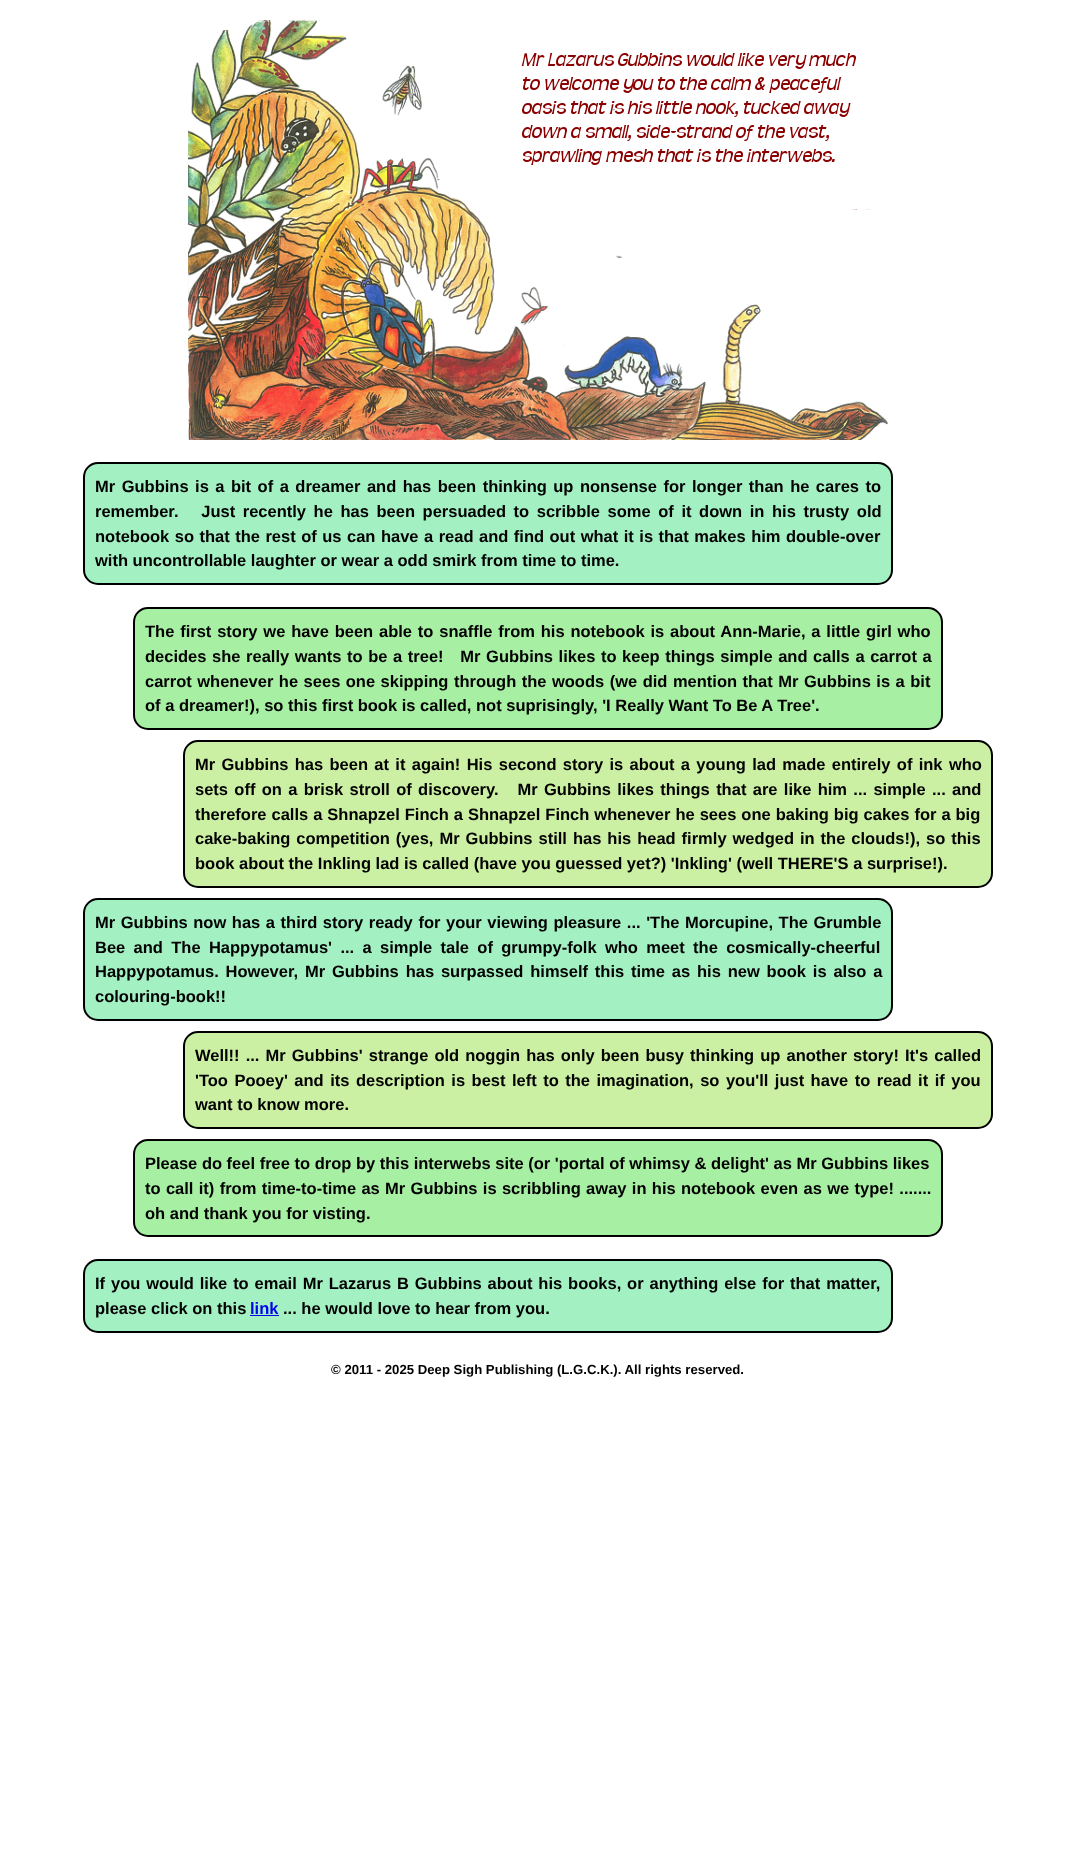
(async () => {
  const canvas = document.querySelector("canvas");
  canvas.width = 1075;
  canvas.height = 1858;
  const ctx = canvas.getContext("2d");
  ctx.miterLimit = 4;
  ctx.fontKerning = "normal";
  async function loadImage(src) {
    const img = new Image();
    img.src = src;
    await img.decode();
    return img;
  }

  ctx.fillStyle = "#ffffff";
  ctx.fillRect(0, 0, 1075, 1858);
  ctx.drawImage(await loadImage("img/1.png"), 188, 20, 700, 420);
  ctx.fillStyle = "#a3f0c2";
  ctx.beginPath();
  ctx.roundRect(84, 463, 808, 121, 14);
  ctx.fill();
  ctx.strokeStyle = "#000000";
  ctx.lineWidth = 2;
  ctx.stroke();
  ctx.fillStyle = "#a7f0a3";
  ctx.beginPath();
  ctx.roundRect(134, 608, 808, 121, 14);
  ctx.fill();
  ctx.stroke();
  ctx.fillStyle = "#cbf0a3";
  ctx.beginPath();
  ctx.roundRect(184, 741, 808, 146, 14);
  ctx.fill();
  ctx.stroke();
  ctx.fillStyle = "#a3f0c2";
  ctx.beginPath();
  ctx.roundRect(84, 899, 808, 121, 14);
  ctx.fill();
  ctx.stroke();
  ctx.fillStyle = "#cbf0a3";
  ctx.beginPath();
  ctx.roundRect(184, 1032, 808, 96, 14);
  ctx.fill();
  ctx.stroke();
  ctx.fillStyle = "#a7f0a3";
  ctx.beginPath();
  ctx.roundRect(134, 1140, 808, 96, 14);
  ctx.fill();
  ctx.stroke();
  ctx.fillStyle = "#a3f0c2";
  ctx.beginPath();
  ctx.roundRect(84, 1260, 808, 72, 14);
  ctx.fill();
  ctx.stroke();
  ctx.fillStyle = "#0000ee";
  ctx.fillRect(250, 1315, 29, 1);
  ctx.wordSpacing = "1.9px";
  ctx.font = "bold 16.5px Liberation Sans";
  ctx.fillStyle = "#000000";
  ctx.fillText("Mr Gubbins is a bit of a dreamer and has been thinking up nonsense for longer than he cares to", 95, 492);
  ctx.wordSpacing = "3px";
  ctx.fillText("remember.   Just recently he has been persuaded to scribble some of it down in his trusty old", 95, 517);
  ctx.wordSpacing = "0.9px";
  ctx.fillText("notebook so that the rest of us can have a read and find out what it is that makes him double-over", 95, 542);
  ctx.wordSpacing = "0px";
  ctx.fillText("with uncontrollable laughter or wear a odd smirk from time to time.", 95, 566);
  ctx.wordSpacing = "1.25px";
  ctx.fillText("The first story we have been able to snaffle from his notebook is about Ann-Marie, a little girl who", 145, 637);
  ctx.wordSpacing = "1px";
  ctx.fillText("decides she really wants to be a tree!   Mr Gubbins likes to keep things simple and calls a carrot a", 145, 662);
  ctx.wordSpacing = "0.9px";
  ctx.fillText("carrot whenever he sees one skipping through the woods (we did mention that Mr Gubbins is a bit", 145, 687);
  ctx.wordSpacing = "0px";
  ctx.fillText("of a dreamer!), so this first book is called, not suprisingly, 'I Really Want To Be A Tree'.", 145, 711);
  ctx.wordSpacing = "1.75px";
  ctx.fillText("Mr Gubbins has been at it again! His second story is about a young lad made entirely of ink who", 195, 770);
  ctx.fillText("sets off on a brisk stroll of discovery.   Mr Gubbins likes things that are like him ... simple ... and", 195, 795);
  ctx.wordSpacing = "0.4px";
  ctx.fillText("therefore calls a Shnapzel Finch a Shnapzel Finch whenever he sees one baking big cakes for a big", 195, 820);
  ctx.wordSpacing = "1.4px";
  ctx.fillText("cake-baking competition (yes, Mr Gubbins still has his head firmly wedged in the clouds!), so this", 195, 844);
  ctx.wordSpacing = "0px";
  ctx.fillText("book about the Inkling lad is called (have you guessed yet?) 'Inkling' (well THERE'S a surprise!).", 195, 869);
  ctx.wordSpacing = "1px";
  ctx.fillText("Mr Gubbins now has a third story ready for your viewing pleasure ... 'The Morcupine, The Grumble", 95, 928);
  ctx.wordSpacing = "3.75px";
  ctx.fillText("Bee and The Happypotamus' ... a simple tale of grumpy-folk who meet the cosmically-cheerful", 95, 953);
  ctx.wordSpacing = "2.25px";
  ctx.fillText("Happypotamus. However, Mr Gubbins has surpassed himself this time as his new book is also a", 95, 977);
  ctx.wordSpacing = "0px";
  ctx.fillText("colouring-book!!", 95, 1002);
  ctx.wordSpacing = "1.5px";
  ctx.fillText("Well!! ... Mr Gubbins' strange old noggin has only been busy thinking up another story! It's called", 195, 1061);
  ctx.wordSpacing = "1.9px";
  ctx.fillText("'Too Pooey' and its description is best left to the imagination, so you'll just have to read it if you", 195, 1086);
  ctx.wordSpacing = "0px";
  ctx.fillText("want to know more.", 195, 1110);
  ctx.fillText("Please do feel free to drop by this interwebs site (or 'portal of whimsy & delight' as Mr Gubbins likes", 145, 1169);
  ctx.wordSpacing = "0.75px";
  ctx.fillText("to call it) from time-to-time as Mr Gubbins is scribbling away in his notebook even as we type! .......", 145, 1194);
  ctx.wordSpacing = "0px";
  ctx.fillText("oh and thank you for visting.", 145, 1219);
  ctx.wordSpacing = "1.3px";
  ctx.fillText("If you would like to email Mr Lazarus B Gubbins about his books, or anything else for that matter,", 95, 1289);
  ctx.wordSpacing = "0px";
  ctx.fillText("please click on this", 95, 1314);
  ctx.fillStyle = "#0000ee";
  ctx.fillText("link", 250, 1314);
  ctx.fillStyle = "#000000";
  ctx.fillText("... he would love to hear from you.", 283, 1314);
  ctx.font = "bold 13.2px Liberation Sans";
  ctx.fillText("© 2011 - 2025 Deep Sigh Publishing (L.G.C.K.). All rights reserved.", 331, 1374);
})();
